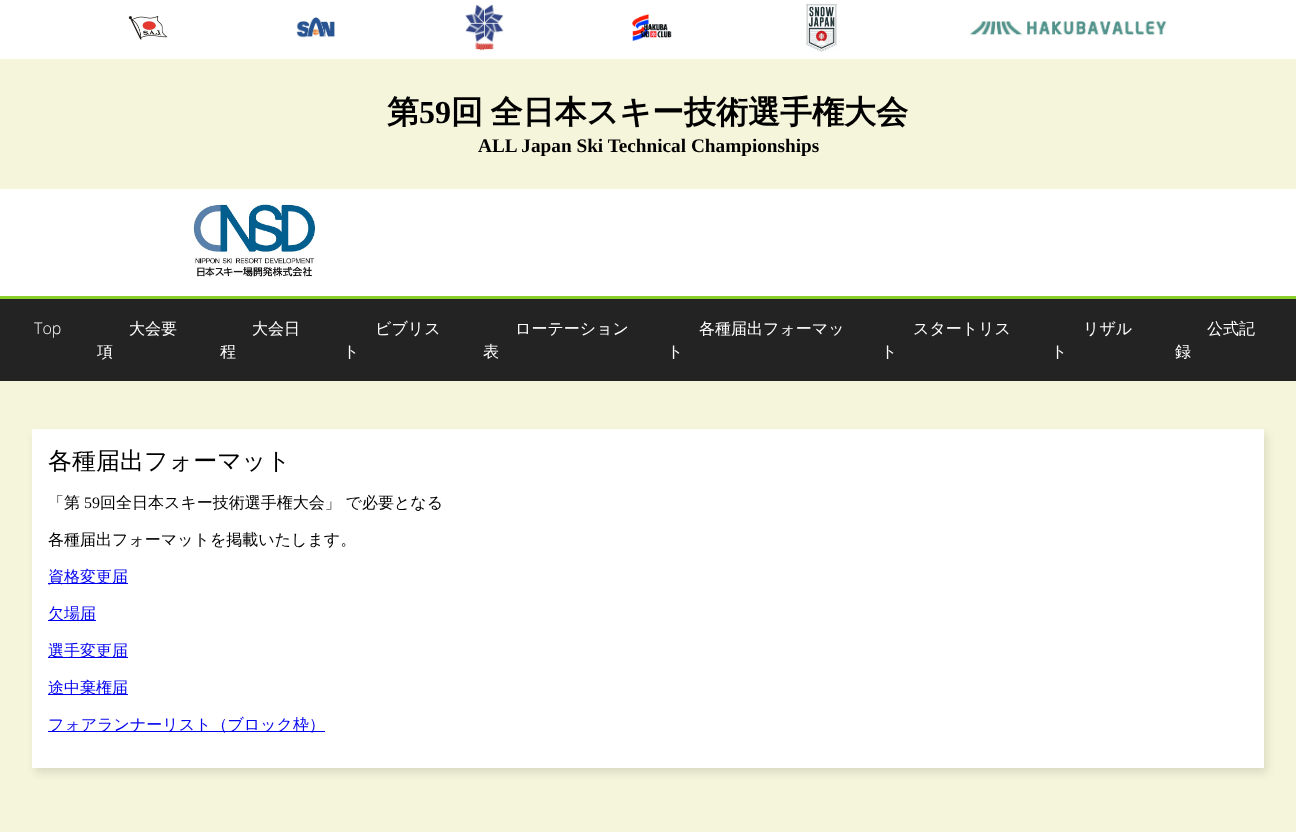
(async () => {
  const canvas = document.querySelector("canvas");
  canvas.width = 1296;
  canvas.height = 835;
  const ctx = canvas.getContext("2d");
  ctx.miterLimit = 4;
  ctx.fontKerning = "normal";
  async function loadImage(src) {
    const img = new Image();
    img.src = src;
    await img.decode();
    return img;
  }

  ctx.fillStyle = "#f5f5dc";
  ctx.fillRect(0, 0, 1296, 835);
  ctx.fillStyle = "#ffffff";
  ctx.fillRect(0, 0, 1296, 59);
  ctx.drawImage(await loadImage("img/1.png"), 128, 16, 40, 24);
  ctx.drawImage(await loadImage("img/2.png"), 296, 17, 39, 21);
  ctx.drawImage(await loadImage("img/3.png"), 465, 4, 39, 47);
  ctx.drawImage(await loadImage("img/4.png"), 632, 14, 40, 27);
  ctx.drawImage(await loadImage("img/5.png"), 805, 3, 32, 49);
  ctx.drawImage(await loadImage("img/6.png"), 969, 21, 198, 15);
  ctx.fillRect(0, 189, 1296, 107);
  ctx.drawImage(await loadImage("img/7.png"), 193, 203, 123, 74);
  ctx.fillStyle = "#232323";
  ctx.fillRect(0, 299, 1296, 82);
  ctx.fillStyle = "#89ce29";
  ctx.fillRect(0, 296, 1296, 3);
  ctx.fillStyle = "rgba(0, 0, 0, 0.1)";
  ctx.filter = "blur(4.5px)";
  ctx.beginPath();
  ctx.rect(35, 434, 1232, 339);
  ctx.fill();
  ctx.filter = "none";
  for (const [x, y, w, h, color] of [
    [32, 429, 1232, 339, "#ffffff"],
    [48, 583, 80, 1, "#0000ee"],
    [48, 620, 48, 1, "#0000ee"],
    [48, 657, 80, 1, "#0000ee"],
    [48, 694, 80, 1, "#0000ee"],
    [48, 731, 277, 1, "#0000ee"],
    [0, 832, 1296, 3, "#ffffff"],
  ]) {
    ctx.fillStyle = color;
    ctx.fillRect(x, y, w, h);
  }
  ctx.font = "bold 32px WenQuanYi Zen Hei";
  ctx.fillStyle = "#000000";
  ctx.fillText("第", 387, 123);
  ctx.font = "bold 32px Liberation Serif";
  ctx.fillText("59", 419, 123);
  ctx.wordSpacing = "-2px";
  ctx.font = "bold 32px WenQuanYi Zen Hei";
  ctx.fillText("回 全日本スキー技術選手権大会", 451, 123);
  ctx.wordSpacing = "0px";
  ctx.font = "bold 19.25px Liberation Serif";
  ctx.fillText("ALL Japan Ski Technical Championships", 478, 152);
  ctx.font = "300 16px Open Sans";
  ctx.fillStyle = "#ffffff";
  ctx.fillText("Top", 34, 334);
  ctx.font = "500 16px WenQuanYi Zen Hei";
  for (const [text, x, y] of [
    ["大会要", 129, 334],
    ["項", 97, 357],
    ["大会日", 252, 334],
    ["程", 220, 357],
    ["ビブリス", 375, 334],
    ["ト", 343, 357],
    ["ローテーション", 515, 334],
    ["表", 483, 357],
    ["各種届出フォーマッ", 699, 334],
    ["ト", 667, 357],
    ["スタートリス", 913, 334],
    ["ト", 881, 357],
    ["リザル", 1083, 334],
    ["ト", 1051, 357],
    ["公式記", 1207, 334],
    ["録", 1175, 357],
  ]) {
    ctx.fillText(text, x, y);
  }
  ctx.font = "500 24px WenQuanYi Zen Hei";
  ctx.fillStyle = "#000000";
  ctx.fillText("各種届出フォーマット", 48, 469);
  ctx.font = "500 16px WenQuanYi Zen Hei";
  ctx.fillText("「第", 48, 508);
  ctx.font = "16px Liberation Serif";
  ctx.fillText("59", 84, 508);
  ctx.font = "500 16px WenQuanYi Zen Hei";
  ctx.fillText("回全日本スキー技術選手権大会」 で必要となる", 100, 508);
  ctx.fillText("各種届出フォーマットを掲載いたします。", 48, 545);
  ctx.fillStyle = "#0000ee";
  for (const [text, x, y] of [
    ["資格変更届", 48, 582],
    ["欠場届", 48, 619],
    ["選手変更届", 48, 656],
    ["途中棄権届", 48, 693],
    ["フォアランナーリスト（ブロック枠）", 48, 730],
  ]) {
    ctx.fillText(text, x, y);
  }
})();
